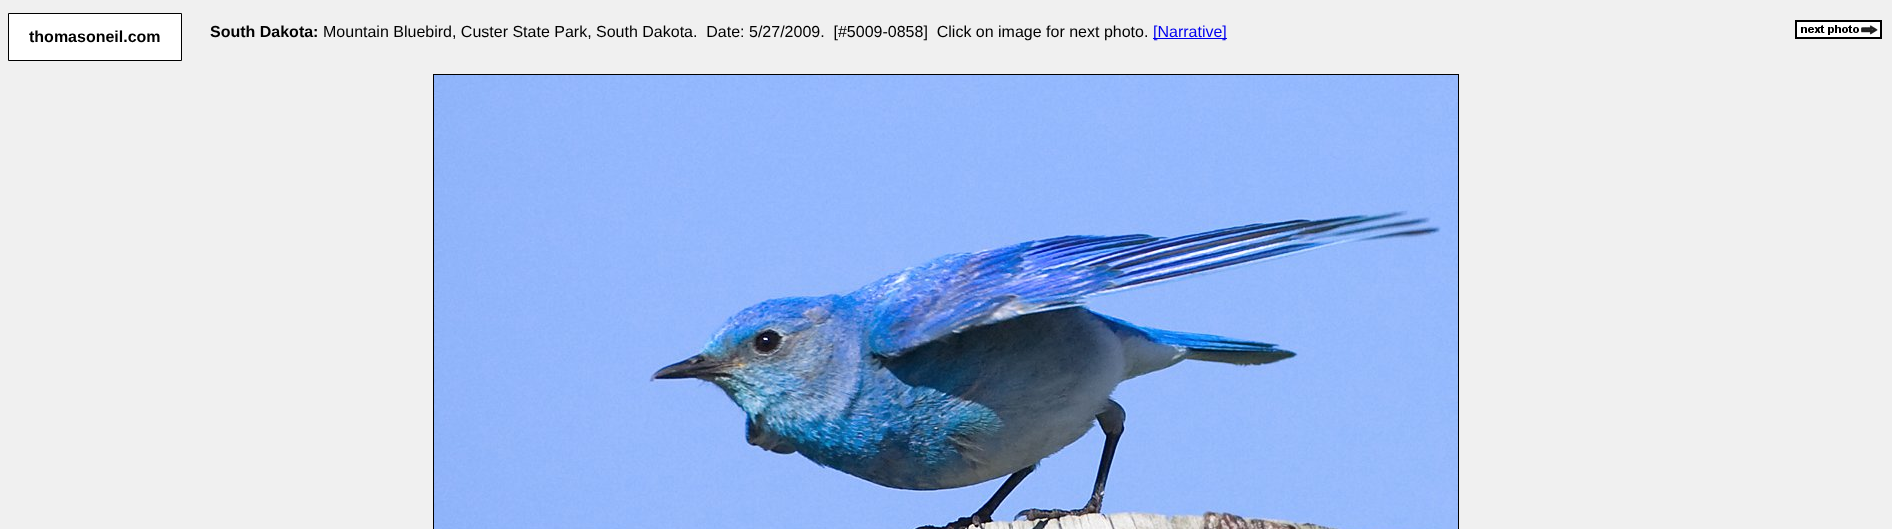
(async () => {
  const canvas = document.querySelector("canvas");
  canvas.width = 1892;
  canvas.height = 529;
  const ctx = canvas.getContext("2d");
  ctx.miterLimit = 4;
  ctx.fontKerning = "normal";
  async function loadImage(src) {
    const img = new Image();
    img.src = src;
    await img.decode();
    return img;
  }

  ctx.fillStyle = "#f0f0f0";
  ctx.fillRect(0, 0, 1892, 529);
  ctx.fillStyle = "#ffffff";
  ctx.beginPath();
  ctx.rect(8.5, 13.5, 173, 47);
  ctx.fill();
  ctx.strokeStyle = "#000000";
  ctx.stroke();
  ctx.fillStyle = "#0000ee";
  ctx.fillRect(1153, 38, 74, 1);
  ctx.strokeRect(1795.5, 20.5, 86, 18);
  ctx.drawImage(await loadImage("img/1.png"), 1796, 21, 85, 17);
  ctx.strokeRect(433.5, 74.5, 1025, 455);
  ctx.drawImage(await loadImage("img/2.png"), 434, 75, 1024, 454);
  ctx.font = "bold 16px Liberation Sans";
  ctx.fillStyle = "#000000";
  ctx.fillText("thomasoneil.com", 29, 42);
  ctx.fillText("South Dakota:", 210, 37);
  ctx.font = "16px Liberation Sans";
  ctx.fillText("Mountain Bluebird, Custer State Park, South Dakota.  Date: 5/27/2009.  [#5009-0858]  Click on image for next photo.", 323, 37);
  ctx.fillStyle = "#0000ee";
  ctx.fillText("[Narrative]", 1153, 37);
})();
